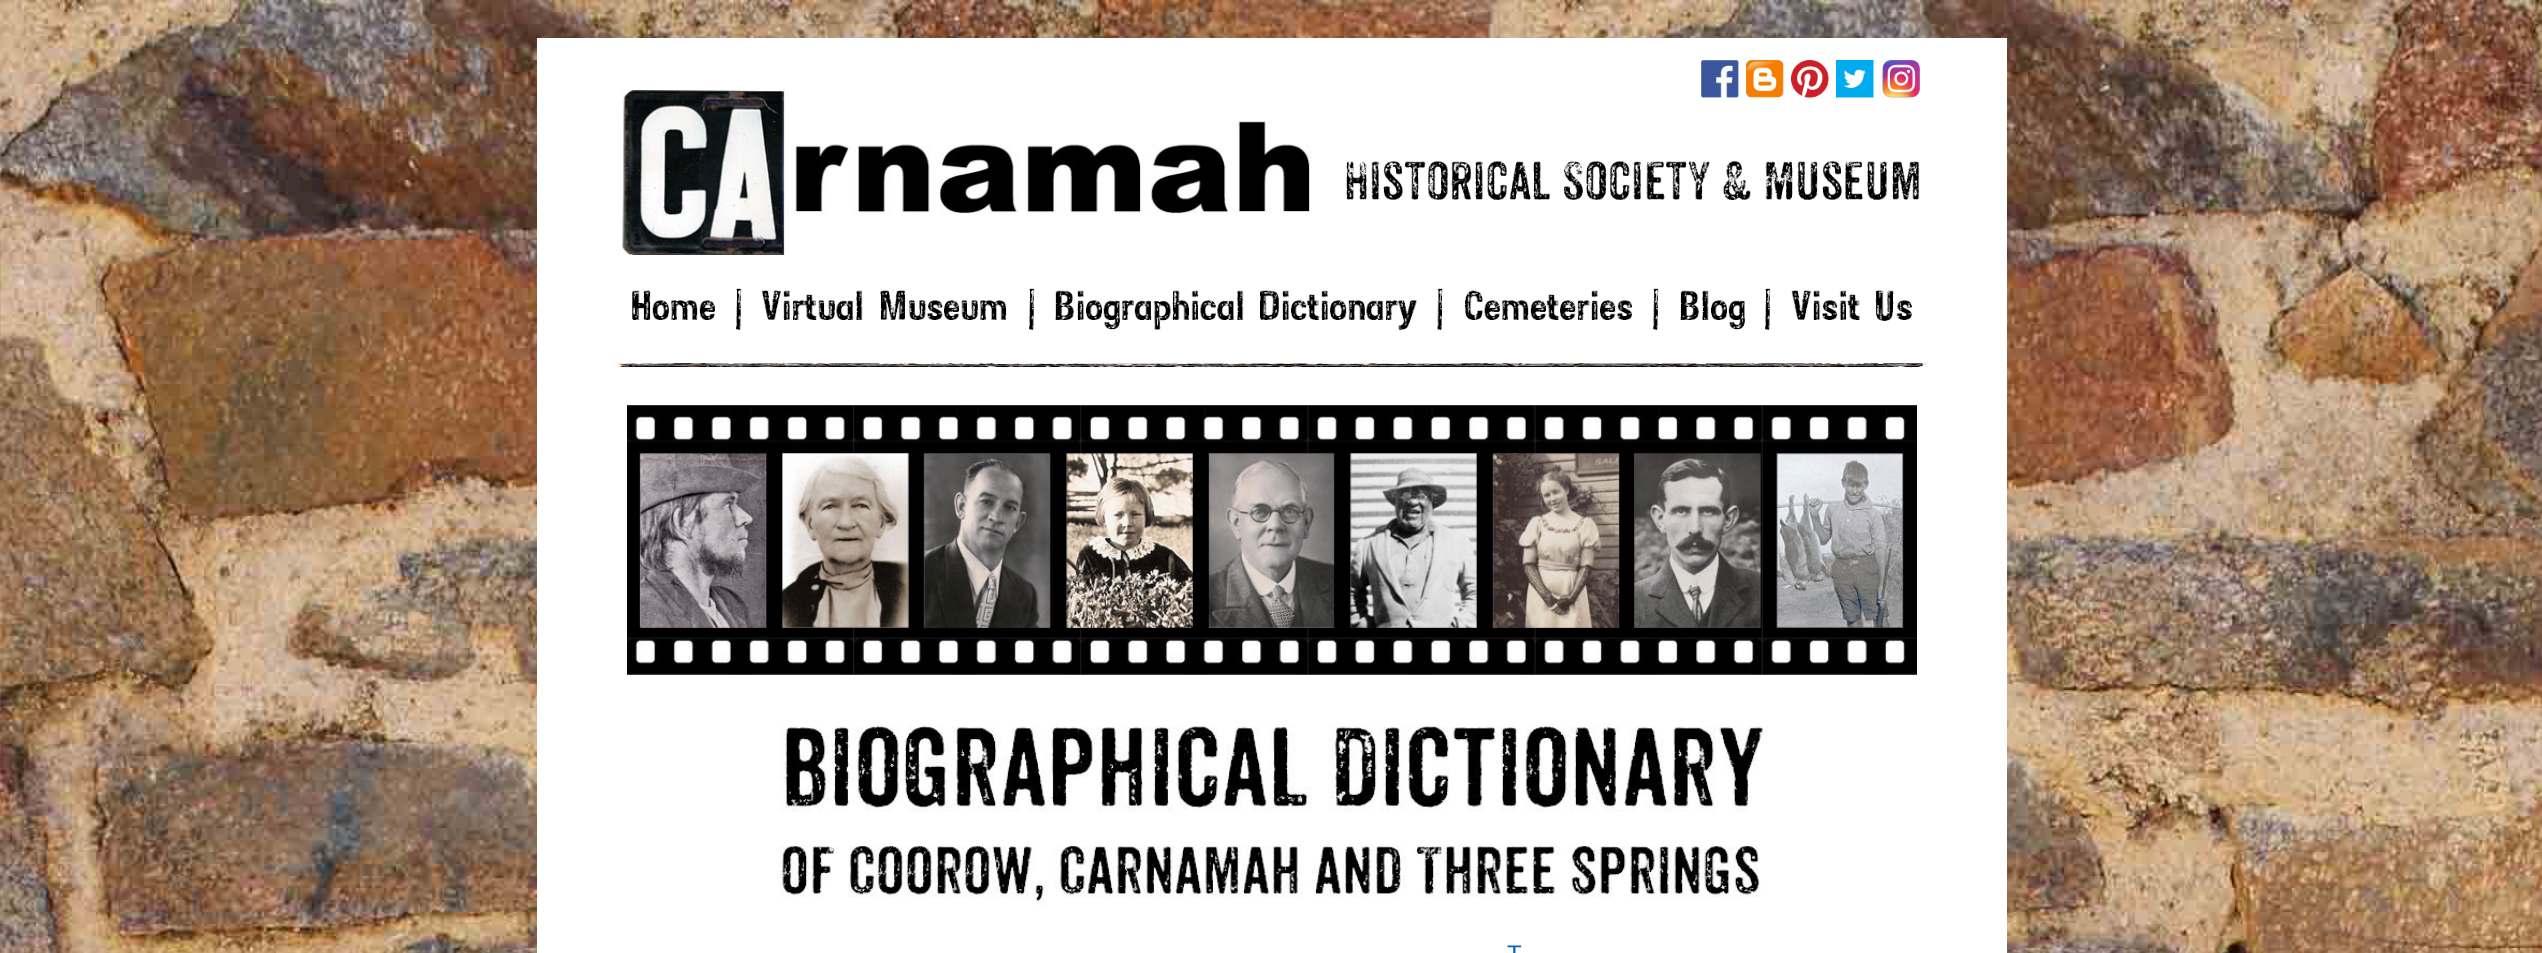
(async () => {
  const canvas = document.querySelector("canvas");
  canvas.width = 2542;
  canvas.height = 953;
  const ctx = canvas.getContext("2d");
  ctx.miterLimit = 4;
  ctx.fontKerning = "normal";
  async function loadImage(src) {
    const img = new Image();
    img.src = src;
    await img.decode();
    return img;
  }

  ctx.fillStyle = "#ffffff";
  ctx.fillRect(0, 0, 2542, 953);
  ctx.drawImage(await loadImage("img/1.png"), 0, 0, 2542, 953);
  ctx.fillRect(537, 38, 1470, 915);
  ctx.drawImage(await loadImage("img/2.png"), 1701, 60, 38, 38);
  ctx.drawImage(await loadImage("img/3.png"), 1746, 60, 38, 38);
  ctx.drawImage(await loadImage("img/4.png"), 1791, 60, 38, 38);
  ctx.drawImage(await loadImage("img/5.png"), 1836, 60, 38, 38);
  ctx.drawImage(await loadImage("img/6.png"), 1882, 60, 38, 38);
  ctx.drawImage(await loadImage("img/7.png"), 622, 90, 689, 165);
  ctx.drawImage(await loadImage("img/8.png"), 1346, 160, 574, 40);
  ctx.drawImage(await loadImage("img/9.png"), 632, 288, 1280, 42);
  ctx.drawImage(await loadImage("img/10.png"), 615, 363, 1313, 5);
  ctx.drawImage(await loadImage("img/11.png"), 627, 405, 1290, 270);
  ctx.drawImage(await loadImage("img/12.png"), 779, 726, 988, 180);
  ctx.font = "24px Liberation Sans";
  ctx.fillStyle = "#0066cc";
  ctx.fillText("T", 1507, 962);
})();
